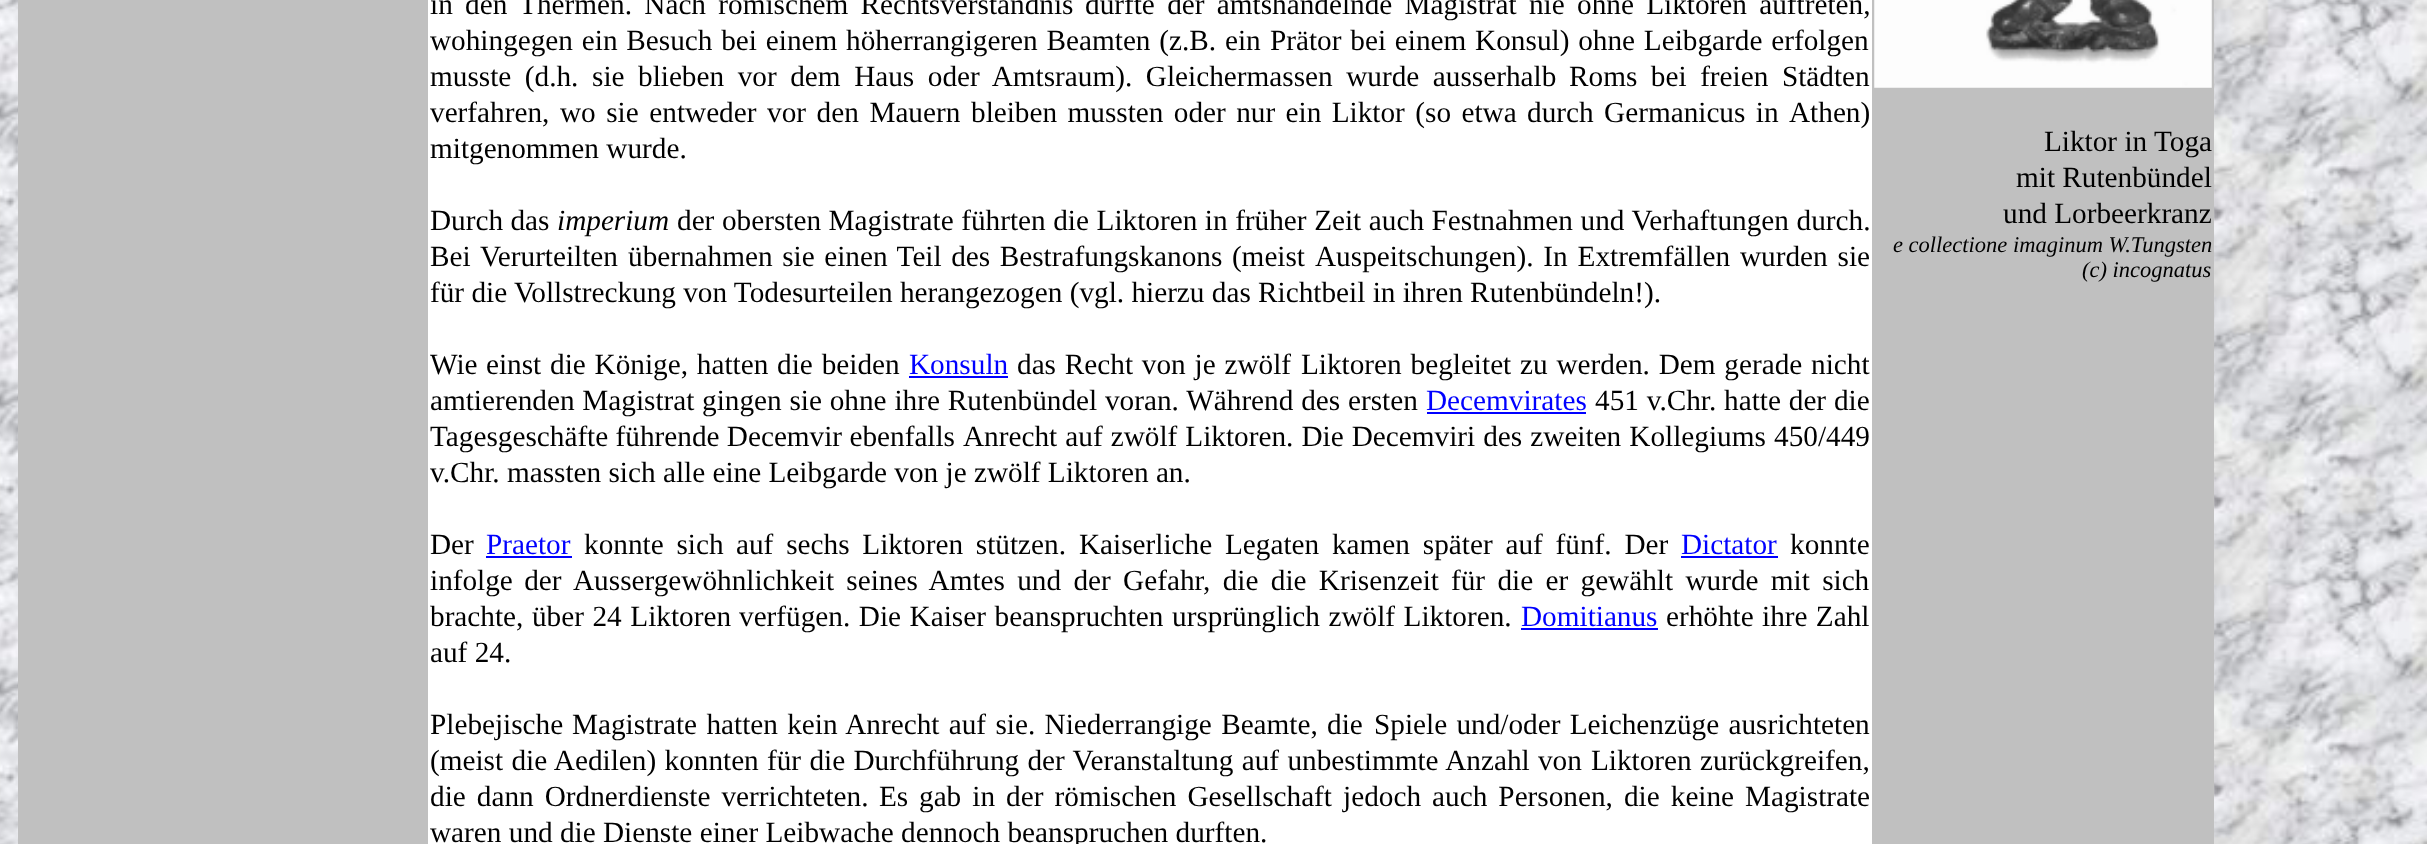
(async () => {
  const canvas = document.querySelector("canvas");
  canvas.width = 2427;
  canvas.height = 844;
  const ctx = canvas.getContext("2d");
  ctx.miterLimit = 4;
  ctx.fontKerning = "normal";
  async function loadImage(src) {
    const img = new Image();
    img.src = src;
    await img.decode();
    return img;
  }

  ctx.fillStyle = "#ffffff";
  ctx.fillRect(0, 0, 2427, 844);
  ctx.drawImage(await loadImage("img/1.png"), 0, 0, 2427, 844);
  for (const [x, y, w, h, color] of [
    [18, 0, 410, 844, "#c0c0c0"],
    [428, 0, 1444, 844, "#ffffff"],
    [909, 376, 99, 2, "#0000ff"],
    [1427, 412, 159, 2, "#0000ff"],
    [486, 556, 86, 2, "#0000ff"],
    [1681, 556, 97, 2, "#0000ff"],
    [1521, 628, 137, 2, "#0000ff"],
    [1872, 0, 342, 844, "#c0c0c0"],
  ]) {
    ctx.fillStyle = color;
    ctx.fillRect(x, y, w, h);
  }
  ctx.drawImage(await loadImage("img/2.png"), 1874, 0, 338, 88);
  ctx.wordSpacing = "5px";
  ctx.font = "29.25px Liberation Serif";
  ctx.fillStyle = "#000000";
  ctx.fillText("in den Thermen. Nach römischem Rechtsverständnis", 430, 14);
  ctx.fillText("durfte der amtshandelnde Magistrat nie ohne Liktoren auftreten,", 1085, 14);
  ctx.wordSpacing = "1.5px";
  ctx.fillText("wohingegen ein Besuch bei einem höherrangigeren Beamten (z.B. ein", 430, 50);
  ctx.fillText("Prätor bei einem Konsul) ohne Leibgarde erfolgen", 1270, 50);
  ctx.wordSpacing = "6.25px";
  for (const [text, x, y] of [
    ["musste (d.h. sie", 430, 86],
    ["blieben vor dem Haus oder Amtsraum). Gleichermassen wurde ausserhalb", 638, 86],
    ["Roms bei freien Städten", 1569, 86],
  ]) {
    ctx.fillText(text, x, y);
  }
  ctx.wordSpacing = "3.25px";
  ctx.fillText("verfahren, wo sie entweder vor den Mauern", 430, 122);
  ctx.wordSpacing = "3.1px";
  ctx.fillText("bleiben mussten oder nur ein Liktor (so etwa durch Germanicus in", 971, 122);
  ctx.wordSpacing = "0px";
  for (const [text, x, y] of [
    ["Athen)", 1789, 122],
    ["mitgenommen wurde.", 430, 158],
    ["Durch das", 430, 230],
  ]) {
    ctx.fillText(text, x, y);
  }
  ctx.font = "italic 29.25px Liberation Serif";
  ctx.fillText("imperium", 557, 230);
  ctx.wordSpacing = "0.25px";
  ctx.font = "29.25px Liberation Serif";
  ctx.fillText("der obersten Magistrate führten die Liktoren in früher Zeit auch Festnahmen und Verhaftungen durch.", 677, 230);
  ctx.wordSpacing = "2.5px";
  ctx.fillText("Bei Verurteilten", 430, 266);
  ctx.wordSpacing = "2.25px";
  ctx.fillText("übernahmen sie einen Teil des Bestrafungskanons (meist", 628, 266);
  ctx.wordSpacing = "2.5px";
  ctx.fillText("Auspeitschungen). In Extremfällen wurden sie", 1315, 266);
  ctx.wordSpacing = "0px";
  ctx.fillText("für die Vollstreckung von Todesurteilen herangezogen (vgl. hierzu das Richtbeil in ihren Rutenbündeln!).", 430, 302);
  ctx.fillText("Wie", 430, 374);
  ctx.wordSpacing = "1.5px";
  ctx.fillText("einst die Könige, hatten die beiden", 486, 374);
  ctx.wordSpacing = "0px";
  ctx.fillStyle = "#0000ff";
  ctx.fillText("Konsuln", 909, 374);
  ctx.wordSpacing = "1.5px";
  ctx.fillStyle = "#000000";
  ctx.fillText("das Recht von je zwölf", 1017, 374);
  ctx.fillText("Liktoren begleitet zu werden. Dem gerade nicht", 1301, 374);
  ctx.wordSpacing = "0.5px";
  ctx.fillText("amtierenden Magistrat", 430, 410);
  ctx.fillText("gingen sie ohne ihre Rutenbündel voran. Während des ersten", 702, 410);
  ctx.wordSpacing = "0px";
  ctx.fillStyle = "#0000ff";
  ctx.fillText("Decemvirates", 1426, 410);
  ctx.wordSpacing = "0.5px";
  ctx.fillStyle = "#000000";
  ctx.fillText("451 v.Chr. hatte der die", 1595, 410);
  ctx.wordSpacing = "0px";
  ctx.fillText("Tagesgeschäfte führende Decemvir ebenfalls", 430, 446);
  ctx.wordSpacing = "0.75px";
  ctx.fillText("Anrecht auf zwölf Liktoren. Die Decemviri des zweiten Kollegiums", 963, 446);
  ctx.wordSpacing = "0px";
  for (const [text, x, y] of [
    ["450/449", 1774, 446],
    ["v.Chr. massten sich alle eine Leibgarde von je zwölf Liktoren an.", 430, 482],
    ["Der", 430, 554],
  ]) {
    ctx.fillText(text, x, y);
  }
  ctx.fillStyle = "#0000ff";
  ctx.fillText("Praetor", 486, 554);
  ctx.wordSpacing = "5.5px";
  ctx.fillStyle = "#000000";
  for (const [text, x, y] of [
    ["konnte sich", 584, 554],
    ["auf sechs Liktoren stützen.", 736, 554],
    ["Kaiserliche Legaten kamen später auf fünf. Der", 1079, 554],
  ]) {
    ctx.fillText(text, x, y);
  }
  ctx.wordSpacing = "0px";
  ctx.fillStyle = "#0000ff";
  ctx.fillText("Dictator", 1681, 554);
  ctx.fillStyle = "#000000";
  ctx.fillText("konnte", 1790, 554);
  ctx.wordSpacing = "4px";
  ctx.fillText("infolge der", 430, 590);
  ctx.wordSpacing = "5px";
  ctx.fillText("Aussergewöhnlichkeit seines Amtes und der Gefahr, die die Krisenzeit", 573, 590);
  ctx.fillText("für die er gewählt wurde mit sich", 1451, 590);
  ctx.wordSpacing = "1.25px";
  ctx.fillText("brachte, über 24 Liktoren", 430, 626);
  ctx.fillText("verfügen. Die Kaiser beanspruchten ursprünglich zwölf Liktoren.", 739, 626);
  ctx.wordSpacing = "0px";
  ctx.fillStyle = "#0000ff";
  ctx.fillText("Domitianus", 1521, 626);
  ctx.wordSpacing = "1px";
  ctx.fillStyle = "#000000";
  ctx.fillText("erhöhte ihre Zahl", 1666, 626);
  ctx.wordSpacing = "0px";
  ctx.fillText("auf 24.", 430, 662);
  ctx.fillText("Plebejische", 430, 734);
  ctx.wordSpacing = "2px";
  ctx.fillText("Magistrate hatten kein Anrecht auf sie. Niederrangige Beamte, die", 572, 734);
  ctx.fillText("Spiele und/oder Leichenzüge ausrichteten", 1374, 734);
  ctx.wordSpacing = "1px";
  for (const [text, x, y] of [
    ["(meist die Aedilen) konnten", 430, 770],
    ["für die Durchführung der Veranstaltung auf unbestimmte Anzahl von", 767, 770],
    ["Liktoren zurückgreifen,", 1591, 770],
  ]) {
    ctx.fillText(text, x, y);
  }
  ctx.wordSpacing = "3.75px";
  ctx.fillText("die dann Ordnerdienste verrichteten.", 430, 806);
  ctx.wordSpacing = "0px";
  ctx.fillText("Es", 879, 806);
  ctx.wordSpacing = "3.75px";
  ctx.fillText("gab in der römischen Gesellschaft jedoch auch Personen, die keine", 919, 806);
  ctx.wordSpacing = "0px";
  for (const [text, x, y] of [
    ["Magistrate", 1745, 806],
    ["waren und die Dienste einer Leibwache dennoch beanspruchen durften.", 430, 842],
    ["Liktor in Toga", 2044, 151],
    ["mit Rutenbündel", 2016, 187],
    ["und Lorbeerkranz", 2003, 223],
  ]) {
    ctx.fillText(text, x, y);
  }
  ctx.font = "italic 22.5px Liberation Serif";
  ctx.fillText("e collectione imaginum W.Tungsten", 1893, 252);
  ctx.fillText("(c) incognatus", 2082, 277);
})();
